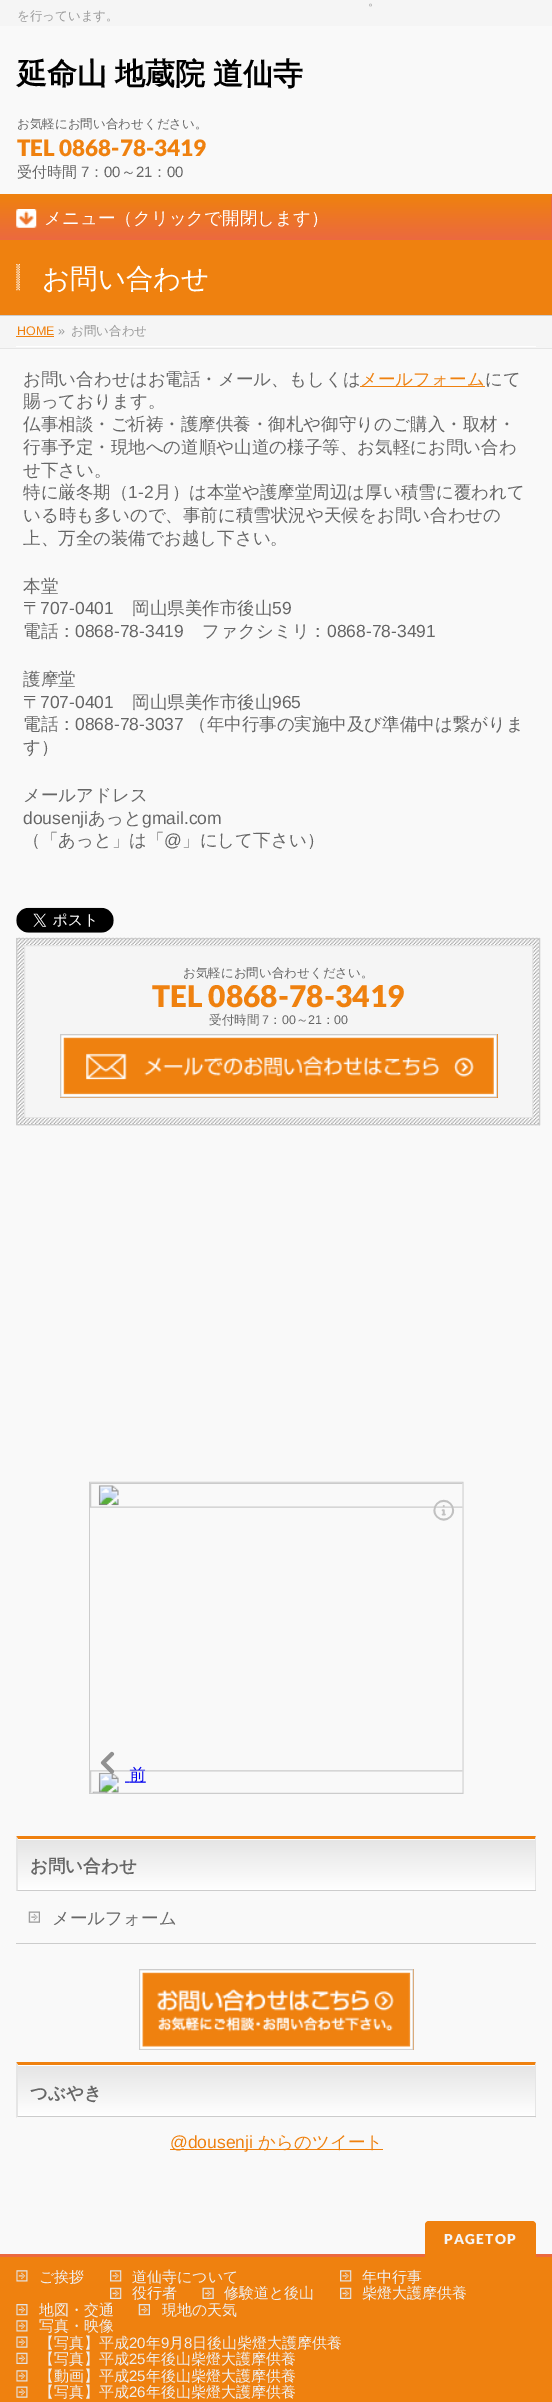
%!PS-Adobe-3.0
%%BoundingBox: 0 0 552 2402
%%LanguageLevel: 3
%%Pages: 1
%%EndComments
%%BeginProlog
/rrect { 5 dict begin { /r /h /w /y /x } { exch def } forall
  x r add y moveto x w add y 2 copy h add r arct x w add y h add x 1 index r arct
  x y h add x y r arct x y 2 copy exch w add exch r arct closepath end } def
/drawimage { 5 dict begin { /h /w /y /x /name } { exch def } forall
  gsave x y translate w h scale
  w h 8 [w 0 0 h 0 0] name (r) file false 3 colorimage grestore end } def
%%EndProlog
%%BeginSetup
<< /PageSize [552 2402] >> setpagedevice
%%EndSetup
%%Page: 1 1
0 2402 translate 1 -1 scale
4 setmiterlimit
0.976 setgray
0 0 552 2402 rectfill
0.961 setgray
0 0 552 26 rectfill
0.937 0.506 0.059 setrgbcolor
0 194 552 2 rectfill
gsave newpath 0 196 moveto 551 196 lineto 551 240 lineto 0 240 lineto closepath clip newpath
<< /ShadingType 2 /ColorSpace /DeviceRGB /Coords [276 196 276 240] /Extend [true true] /Function << /FunctionType 2 /Domain [0 1] /C0 [0.937 0.506 0.059] /C1 [0.922 0.412 0.251] /N 1 >> >> shfill grestore
0.922 0.412 0.251 setrgbcolor
551 196 1 44 rectfill
(images/1.raw) 16 209 21 19 drawimage
0.937 0.506 0.059 setrgbcolor
0 240 552 75 rectfill
0.8 setgray
0 315 552 1 rectfill
(images/2.raw) 16 264 4 27 drawimage
0.961 setgray
0 316 552 32 rectfill
0.898 setgray
0 348 552 1 rectfill
1 setgray
16 346 520 1 rectfill
0.937 0.506 0.059 setrgbcolor
16 336 38 1 rectfill
360 386 125 1 rectfill
(images/3.raw) 16 907 98 26 drawimage
(images/4.raw) 16 937 524 189 drawimage
0.8 setgray
16.5 938.5 523 186 rectstroke
0.961 setgray
newpath 24.5 945.5 moveto 532.5 945.5 lineto 532.5 1117.5 lineto 24.5 1117.5 lineto closepath gsave fill grestore
0.898 setgray
stroke
0.937 0.506 0.059 setrgbcolor
60 1034 438 64 rectfill
(images/5.raw) 60 1034 438 64 drawimage
(images/6.raw) 89 1481 375 313 drawimage
gsave newpath 18 1840 moveto 535 1840 lineto 535 1890 lineto 18 1890 lineto closepath clip newpath
<< /ShadingType 2 /ColorSpace /DeviceRGB /Coords [18 1839 18 1890] /Extend [true true] /Function << /FunctionType 2 /Domain [0 1] /C0 [0.898 0.898 0.898] /C1 [1 1 1] /N 1 >> >> shfill grestore
1 setgray
18 1839 517 1 rectfill
0.937 0.506 0.059 setrgbcolor
newpath 16 1836 moveto 536 1836 lineto 535 1839 lineto 18 1839 lineto closepath fill
0.898 setgray
newpath 536 1836 moveto 536 1891 lineto 535 1890 lineto 535 1839 lineto closepath fill
0.8 setgray
16 1890 520 1 rectfill
0.898 setgray
newpath 16 1891 moveto 16 1836 lineto 18 1839 lineto 18 1890 lineto closepath fill
0.8 setgray
16 1943 520 1 rectfill
(images/7.raw) 28 1911 12 12 drawimage
0.937 0.506 0.059 setrgbcolor
142 1969 272 81 rectfill
(images/8.raw) 139 1969 275 81 drawimage
gsave newpath 18 2066 moveto 535 2066 lineto 535 2116 lineto 18 2116 lineto closepath clip newpath
<< /ShadingType 2 /ColorSpace /DeviceRGB /Coords [18 2065 18 2116] /Extend [true true] /Function << /FunctionType 2 /Domain [0 1] /C0 [0.898 0.898 0.898] /C1 [1 1 1] /N 1 >> >> shfill grestore
1 setgray
18 2065 517 1 rectfill
0.937 0.506 0.059 setrgbcolor
newpath 16 2062 moveto 536 2062 lineto 535 2065 lineto 18 2065 lineto closepath fill
0.898 setgray
newpath 536 2062 moveto 536 2118 lineto 535 2116 lineto 535 2065 lineto closepath fill
0.8 setgray
16 2116 520 1 rectfill
0.898 setgray
newpath 16 2118 moveto 16 2062 lineto 18 2065 lineto 18 2116 lineto closepath fill
0.937 0.506 0.059 setrgbcolor
170 2149 213 1 rectfill
0 2257 552 145 rectfill
0.922 0.412 0.251 setrgbcolor
0 2254 552 3 rectfill
0.937 0.506 0.059 setrgbcolor
425 2221 111 45 4 rrect fill
(images/9.raw) 16 2270 12 12 drawimage
(images/10.raw) 110 2270 12 12 drawimage
(images/11.raw) 110 2287 12 12 drawimage
(images/12.raw) 202 2287 12 12 drawimage
(images/10.raw) 340 2270 12 12 drawimage
(images/11.raw) 340 2287 12 12 drawimage
(images/13.raw) 16 2304 12 12 drawimage
(images/14.raw) 138 2304 12 12 drawimage
(images/9.raw) 16 2320 12 12 drawimage
(images/15.raw) 16 2336 12 12 drawimage
(images/16.raw) 16 2352 12 12 drawimage
(images/9.raw) 16 2370 12 12 drawimage
(images/15.raw) 16 2386 12 12 drawimage
/WenQuanYiZenHei-Medium [12.5 0 0 -12.5 0 0] selectfont
0.6 setgray
368 5 moveto (。) show
17 20 moveto (を行っています。) show
/WenQuanYiZenHei-Bold [30 0 0 -30 0 0] selectfont
0 setgray
17 84 moveto -1 0 32 (延命山 地蔵院 道仙寺) widthshow
/WenQuanYiZenHei-Medium [12.5 0 0 -12.5 0 0] selectfont
0.4 setgray
17 128 moveto (お気軽にお問い合わせください。) show
/Lato-Black [22.5 0 0 -22.5 0 0] selectfont
0.937 0.506 0.059 setrgbcolor
17 156 moveto (TEL 0868-78-3419) show
/WenQuanYiZenHei-Medium [15 0 0 -15 0 0] selectfont
0.4 setgray
17 177 moveto (受付時間) show
/LiberationSans-Regular [15 0 0 -15 0 0] selectfont
81 177 moveto (7) show
/WenQuanYiZenHei-Medium [15 0 0 -15 0 0] selectfont
89 177 moveto (：) show
/LiberationSans-Regular [15 0 0 -15 0 0] selectfont
104 177 moveto (00) show
/WenQuanYiZenHei-Medium [15 0 0 -15 0 0] selectfont
121 177 moveto (～) show
/LiberationSans-Regular [15 0 0 -15 0 0] selectfont
136 177 moveto (21) show
/WenQuanYiZenHei-Medium [15 0 0 -15 0 0] selectfont
152 177 moveto (：) show
/LiberationSans-Regular [15 0 0 -15 0 0] selectfont
167 177 moveto (00) show
/WenQuanYiZenHei-Medium [17.5 0 0 -17.5 0 0] selectfont
1 setgray
44 224 moveto (メニュー（クリックで開閉します）) show
/WenQuanYiZenHei-Medium [27.5 0 0 -27.5 0 0] selectfont
42 288 moveto (お問い合わせ) show
/LiberationSans-Regular [12.5 0 0 -12.5 0 0] selectfont
0.937 0.506 0.059 setrgbcolor
17 335 moveto (HOME) show
0.6 setgray
58 335 moveto (») show
/WenQuanYiZenHei-Medium [12.5 0 0 -12.5 0 0] selectfont
71 335 moveto (お問い合わせ) show
/WenQuanYiZenHei-Medium [17.5 0 0 -17.5 0 0] selectfont
0.4 setgray
23 385 moveto (お問い合わせはお電話・メール、もしくは) show
0.937 0.506 0.059 setrgbcolor
360 385 moveto (メールフォーム) show
0.4 setgray
485 385 moveto (にて) show
23 407 moveto (賜っております。) show
23 430 moveto (仏事相談・ご祈祷・護摩供養・御札や御守りのご購入・取材・) show
23 453 moveto (行事予定・現地への道順や山道の様子等、お気軽にお問い合わ) show
23 476 moveto (せ下さい。) show
23 498 moveto (特に厳冬期（) show
/LiberationSans-Regular [17.5 0 0 -17.5 0 0] selectfont
128 498 moveto (1-2) show
/WenQuanYiZenHei-Medium [17.5 0 0 -17.5 0 0] selectfont
154 498 moveto (月）は本堂や護摩堂周辺は厚い積雪に覆われて) show
23 521 moveto (いる時も多いので、事前に積雪状況や天候をお問い合わせの) show
23 544 moveto (上、万全の装備でお越し下さい。) show
23 592 moveto (本堂) show
23 614 moveto (〒) show
/LiberationSans-Regular [17.5 0 0 -17.5 0 0] selectfont
40 614 moveto (707-0401) show
/WenQuanYiZenHei-Medium [17.5 0 0 -17.5 0 0] selectfont
132 614 moveto (岡山県美作市後山) show
/LiberationSans-Regular [17.5 0 0 -17.5 0 0] selectfont
272 614 moveto (59) show
/WenQuanYiZenHei-Medium [17.5 0 0 -17.5 0 0] selectfont
23 637 moveto (電話：) show
/LiberationSans-Regular [17.5 0 0 -17.5 0 0] selectfont
75 637 moveto (0868-78-3419) show
/WenQuanYiZenHei-Medium [17.5 0 0 -17.5 0 0] selectfont
202 637 moveto (ファクシミリ：) show
/LiberationSans-Regular [17.5 0 0 -17.5 0 0] selectfont
327 637 moveto (0868-78-3491) show
/WenQuanYiZenHei-Medium [17.5 0 0 -17.5 0 0] selectfont
23 685 moveto (護摩堂) show
23 708 moveto (〒) show
/LiberationSans-Regular [17.5 0 0 -17.5 0 0] selectfont
40 708 moveto (707-0401) show
/WenQuanYiZenHei-Medium [17.5 0 0 -17.5 0 0] selectfont
132 708 moveto (岡山県美作市後山) show
/LiberationSans-Regular [17.5 0 0 -17.5 0 0] selectfont
272 708 moveto (965) show
/WenQuanYiZenHei-Medium [17.5 0 0 -17.5 0 0] selectfont
23 730 moveto (電話：) show
/LiberationSans-Regular [17.5 0 0 -17.5 0 0] selectfont
75 730 moveto (0868-78-3037) show
/WenQuanYiZenHei-Medium [17.5 0 0 -17.5 0 0] selectfont
189 730 moveto (（年中行事の実施中及び準備中は繋がりま) show
23 753 moveto (す）) show
23 801 moveto (メールアドレス) show
/LiberationSans-Regular [17.5 0 0 -17.5 0 0] selectfont
23 824 moveto (dousenji) show
/WenQuanYiZenHei-Medium [17.5 0 0 -17.5 0 0] selectfont
88 824 moveto (あっと) show
/LiberationSans-Regular [17.5 0 0 -17.5 0 0] selectfont
142 824 moveto (gmail.com) show
/WenQuanYiZenHei-Medium [17.5 0 0 -17.5 0 0] selectfont
23 846 moveto (（「あっと」は「) show
/LiberationSans-Regular [17.5 0 0 -17.5 0 0] selectfont
164 846 moveto (@) show
/WenQuanYiZenHei-Medium [17.5 0 0 -17.5 0 0] selectfont
182 846 moveto (」にして下さい）) show
/WenQuanYiZenHei-Medium [12.5 0 0 -12.5 0 0] selectfont
183 977 moveto (お気軽にお問い合わせください。) show
/Lato-Black [30 0 0 -30 0 0] selectfont
0.937 0.506 0.059 setrgbcolor
152 1007 moveto (TEL 0868-78-3419) show
/WenQuanYiZenHei-Medium [12.5 0 0 -12.5 0 0] selectfont
0.4 setgray
209 1024 moveto (受付時間) show
/LiberationSans-Regular [12.5 0 0 -12.5 0 0] selectfont
262 1024 moveto (7) show
/WenQuanYiZenHei-Medium [12.5 0 0 -12.5 0 0] selectfont
269 1024 moveto (：) show
/LiberationSans-Regular [12.5 0 0 -12.5 0 0] selectfont
282 1024 moveto (00) show
/WenQuanYiZenHei-Medium [12.5 0 0 -12.5 0 0] selectfont
296 1024 moveto (～) show
/LiberationSans-Regular [12.5 0 0 -12.5 0 0] selectfont
308 1024 moveto (21) show
/WenQuanYiZenHei-Medium [12.5 0 0 -12.5 0 0] selectfont
322 1024 moveto (：) show
/LiberationSans-Regular [12.5 0 0 -12.5 0 0] selectfont
334 1024 moveto (00) show
/WenQuanYiZenHei-Bold [17.5 0 0 -17.5 0 0] selectfont
30 1872 moveto (お問い合わせ) show
/WenQuanYiZenHei-Medium [17.5 0 0 -17.5 0 0] selectfont
52 1924 moveto (メールフォーム) show
/WenQuanYiZenHei-Bold [17.5 0 0 -17.5 0 0] selectfont
30 2099 moveto (つぶやき) show
/LiberationSans-Regular [17.5 0 0 -17.5 0 0] selectfont
0.937 0.506 0.059 setrgbcolor
170 2148 moveto (@dousenji) show
/WenQuanYiZenHei-Medium [17.5 0 0 -17.5 0 0] selectfont
258 2148 moveto (からのツイート) show
/Lato-Black [13.75 0 0 -13.75 0 0] selectfont
0.961 setgray
444 2244 moveto 1.25 0 (PAGETOP) ashow
/WenQuanYiZenHei-Medium [15 0 0 -15 0 0] selectfont
0.937 setgray
39 2282 moveto (ご挨拶) show
132 2282 moveto (道仙寺について) show
132 2298 moveto (役行者) show
224 2298 moveto (修験道と後山) show
362 2282 moveto (年中行事) show
362 2298 moveto (柴燈大護摩供養) show
39 2315 moveto (地図・交通) show
162 2315 moveto (現地の天気) show
39 2331 moveto (写真・映像) show
39 2348 moveto (【写真】平成) show
/LiberationSans-Regular [15 0 0 -15 0 0] selectfont
129 2348 moveto (20) show
/WenQuanYiZenHei-Medium [15 0 0 -15 0 0] selectfont
146 2348 moveto (年) show
/LiberationSans-Regular [15 0 0 -15 0 0] selectfont
161 2348 moveto (9) show
/WenQuanYiZenHei-Medium [15 0 0 -15 0 0] selectfont
169 2348 moveto (月) show
/LiberationSans-Regular [15 0 0 -15 0 0] selectfont
184 2348 moveto (8) show
/WenQuanYiZenHei-Medium [15 0 0 -15 0 0] selectfont
192 2348 moveto (日後山柴燈大護摩供養) show
39 2364 moveto (【写真】平成) show
/LiberationSans-Regular [15 0 0 -15 0 0] selectfont
129 2364 moveto (25) show
/WenQuanYiZenHei-Medium [15 0 0 -15 0 0] selectfont
146 2364 moveto (年後山柴燈大護摩供養) show
39 2381 moveto (【動画】平成) show
/LiberationSans-Regular [15 0 0 -15 0 0] selectfont
129 2381 moveto (25) show
/WenQuanYiZenHei-Medium [15 0 0 -15 0 0] selectfont
146 2381 moveto (年後山柴燈大護摩供養) show
39 2397 moveto (【写真】平成) show
/LiberationSans-Regular [15 0 0 -15 0 0] selectfont
129 2397 moveto (26) show
/WenQuanYiZenHei-Medium [15 0 0 -15 0 0] selectfont
146 2397 moveto (年後山柴燈大護摩供養) show
showpage
%%EOF
